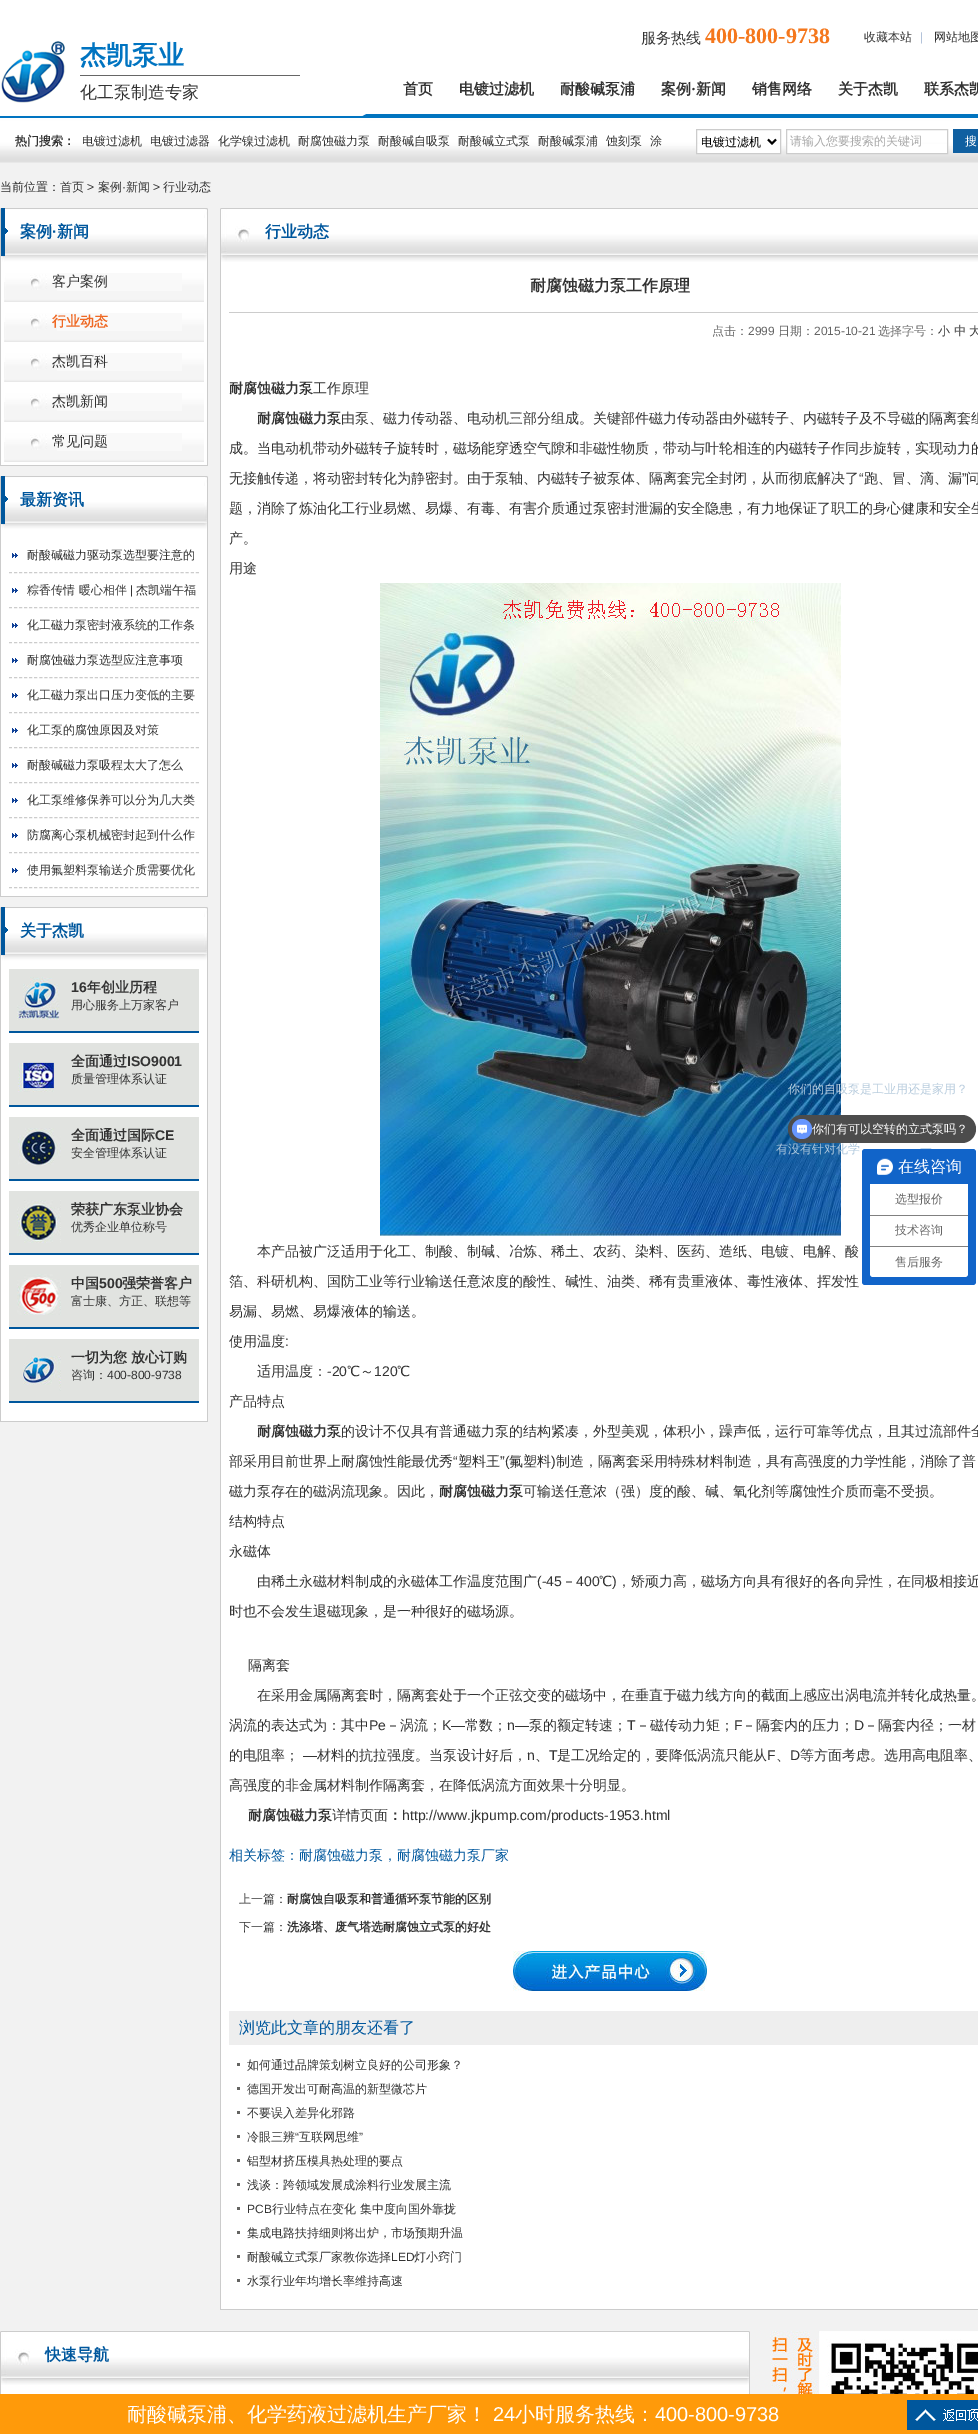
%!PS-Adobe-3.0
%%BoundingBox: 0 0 978 2434
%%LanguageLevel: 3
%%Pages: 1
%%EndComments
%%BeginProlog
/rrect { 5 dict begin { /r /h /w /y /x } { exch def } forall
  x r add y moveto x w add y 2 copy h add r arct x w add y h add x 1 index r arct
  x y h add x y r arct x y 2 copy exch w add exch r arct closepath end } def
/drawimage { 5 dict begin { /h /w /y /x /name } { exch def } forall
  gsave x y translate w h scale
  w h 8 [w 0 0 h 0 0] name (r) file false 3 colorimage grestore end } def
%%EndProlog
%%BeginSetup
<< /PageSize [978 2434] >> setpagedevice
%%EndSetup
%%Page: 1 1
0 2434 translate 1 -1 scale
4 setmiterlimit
0.949 setgray
0 0 978 2434 rectfill
1 setgray
0 0 978 114 rectfill
(images/1.raw) 0 114 978 4 drawimage
(images/2.raw) 1 41 65 62 drawimage
0.4 setgray
80 75 220 1 rectfill
(images/3.raw) 0 118 978 45 drawimage
1 setgray
697 144 83 9 rectfill
0.8 setgray
696.5 129.5 84 24 rectstroke
0 setgray
2 setlinewidth
newpath 768 139.5 moveto 772 143.5 lineto 776 139.5 lineto stroke
1 setgray
787 144 160 9 rectfill
0.8 setgray
1 setlinewidth
786.5 129.5 161 24 rectstroke
0.063 0.376 0.631 setrgbcolor
953 129 25 24 rectfill
(images/4.raw) 8 208 196 54 drawimage
(images/5.raw) 0 208 8 54 drawimage
(images/6.raw) 204 208 4 54 drawimage
1 setgray
1 262 206 203 rectfill
0.8 setgray
207 262 1 204 rectfill
0 465 208 1 rectfill
0 262 1 204 rectfill
(images/7.raw) 4 273 200 29 drawimage
(images/7.raw) 4 313 200 29 drawimage
(images/7.raw) 4 353 200 29 drawimage
(images/7.raw) 4 393 200 29 drawimage
(images/7.raw) 4 433 200 29 drawimage
(images/4.raw) 8 476 196 54 drawimage
(images/5.raw) 0 476 8 54 drawimage
(images/6.raw) 204 476 4 54 drawimage
1 setgray
1 530 206 366 rectfill
0.8 setgray
207 530 1 367 rectfill
0 896 208 1 rectfill
0 530 1 367 rectfill
(images/8.raw) 12 553 6 5 drawimage
[3 2.05] 0 setdash
newpath 9 572.5 moveto 199 572.5 lineto stroke
(images/8.raw) 12 588 6 5 drawimage
newpath 9 607.5 moveto 199 607.5 lineto stroke
(images/8.raw) 12 623 6 5 drawimage
newpath 9 642.5 moveto 199 642.5 lineto stroke
(images/8.raw) 12 658 6 5 drawimage
newpath 9 677.5 moveto 199 677.5 lineto stroke
(images/8.raw) 12 693 6 5 drawimage
newpath 9 712.5 moveto 199 712.5 lineto stroke
(images/8.raw) 12 728 6 5 drawimage
newpath 9 747.5 moveto 199 747.5 lineto stroke
(images/8.raw) 12 763 6 5 drawimage
newpath 9 782.5 moveto 199 782.5 lineto stroke
(images/8.raw) 12 798 6 5 drawimage
newpath 9 817.5 moveto 199 817.5 lineto stroke
(images/8.raw) 12 833 6 5 drawimage
newpath 9 852.5 moveto 199 852.5 lineto stroke
(images/8.raw) 12 868 6 5 drawimage
newpath 9 887.5 moveto 199 887.5 lineto stroke
(images/4.raw) 8 907 196 54 drawimage
(images/5.raw) 0 907 8 54 drawimage
(images/6.raw) 204 907 4 54 drawimage
1 setgray
1 961 206 460 rectfill
0.8 setgray
207 961 1 461 rectfill
0 1421 208 1 rectfill
0 961 1 461 rectfill
0.882 0.89 0.878 setrgbcolor
9 969 190 62 rectfill
0 0.341 0.616 setrgbcolor
9 1031 190 2 rectfill
(images/9.raw) 17 977 43 43 drawimage
0.882 0.89 0.878 setrgbcolor
9 1043 190 62 rectfill
0 0.341 0.616 setrgbcolor
9 1105 190 2 rectfill
(images/10.raw) 18 1062 36 30 drawimage
0.882 0.89 0.878 setrgbcolor
9 1117 190 62 rectfill
0 0.341 0.616 setrgbcolor
9 1179 190 2 rectfill
(images/11.raw) 18 1128 43 38 drawimage
0.882 0.89 0.878 setrgbcolor
9 1191 190 62 rectfill
0 0.341 0.616 setrgbcolor
9 1253 190 2 rectfill
(images/12.raw) 17 1200 44 43 drawimage
0.882 0.89 0.878 setrgbcolor
9 1265 190 62 rectfill
0 0.341 0.616 setrgbcolor
9 1327 190 2 rectfill
(images/13.raw) 17 1274 44 41 drawimage
0.882 0.89 0.878 setrgbcolor
9 1339 190 62 rectfill
0 0.341 0.616 setrgbcolor
9 1401 190 2 rectfill
(images/14.raw) 22 1356 39 35 drawimage
(images/15.raw) 250 208 728 54 drawimage
(images/16.raw) 220 208 30 54 drawimage
1 setgray
221 262 757 2047 rectfill
0.8 setgray
220 2309 758 1 rectfill
220 262 1 2048 rectfill
229 312 749 1 rectfill
(images/17.raw) 380 583 461 653 drawimage
(images/18.raw) 513 1951 194 40 drawimage
0.933 setgray
229 2011 749 34 rectfill
0.392 0.392 0.384 setrgbcolor
237 2063 3 3 rectfill
237 2087 3 3 rectfill
237 2111 3 3 rectfill
237 2135 3 3 rectfill
237 2159 3 3 rectfill
237 2183 3 3 rectfill
237 2207 3 3 rectfill
237 2231 3 3 rectfill
237 2255 3 3 rectfill
237 2279 3 3 rectfill
(images/19.raw) 30 2331 717 54 drawimage
(images/16.raw) 0 2331 30 54 drawimage
(images/20.raw) 747 2331 3 54 drawimage
1 setgray
1 2385 748 9 rectfill
0.8 setgray
749 2385 1 9 rectfill
0 2385 1 9 rectfill
(images/21.raw) 770 2331 208 63 drawimage
1 0.604 0.039 setrgbcolor
0 2394 978 40 rectfill
(images/22.raw) 907 2400 71 30 drawimage
0.298 setgray
788 1115 188 28 14 rrect fill
0.4 0.588 1 setrgbcolor
newpath 802 1129 10 0 360 arc closepath fill
(images/23.raw) 797 1124 10 10 drawimage
0.067 0.392 0.788 setrgbcolor
862 1149 114 136 3 rrect fill
(images/24.raw) 877 1158 16 17 drawimage
1 setgray
870 1184 98 31 rectfill
0.502 setgray
870 1215 98 1 rectfill
1 setgray
870 1216 98 30 rectfill
0.502 setgray
870 1246 98 1 rectfill
1 setgray
newpath 870 1247 moveto 968 1247 lineto 968 1274 lineto 968 1275.5 966.5 1277 965 1277 curveto 873 1277 lineto 871.5 1277 870 1275.5 870 1274 curveto closepath fill
/WenQuanYiZenHei-Medium [15 0 0 -15 0 0] selectfont
0.2 setgray
641 43 moveto (服务热线) show
/LiberationSerif-Bold [22 0 0 -22 0 0] selectfont
0.961 0.467 0.11 setrgbcolor
705 43 moveto (400-800-9738) show
/WenQuanYiZenHei-Medium [12 0 0 -12 0 0] selectfont
0.2 setgray
864 41 moveto (收藏本站) show
/LiberationSans-Regular [12 0 0 -12 0 0] selectfont
0.702 0.765 0.855 setrgbcolor
920 41 moveto (|) show
/WenQuanYiZenHei-Medium [12 0 0 -12 0 0] selectfont
0.2 setgray
934 41 moveto (网站地图) show
/WenQuanYiZenHei-Bold [26 0 0 -26 0 0] selectfont
0 0.455 0.757 setrgbcolor
80 64 moveto (杰凯泵业) show
/WenQuanYiZenHei-Medium [17 0 0 -17 0 0] selectfont
0.2 setgray
80 98 moveto (化工泵制造专家) show
/WenQuanYiZenHei-Bold [15 0 0 -15 0 0] selectfont
403 94 moveto (首页) show
459 94 moveto (电镀过滤机) show
560 94 moveto (耐酸碱泵浦) show
661 94 moveto (案例) show
/LiberationSerif-Bold [15 0 0 -15 0 0] selectfont
691 94 moveto (·) show
/WenQuanYiZenHei-Bold [15 0 0 -15 0 0] selectfont
696 94 moveto (新闻) show
752 94 moveto (销售网络) show
838 94 moveto (关于杰凯) show
924 94 moveto (联系杰凯) show
/WenQuanYiZenHei-Bold [12 0 0 -12 0 0] selectfont
15 145 moveto (热门搜索：) show
/WenQuanYiZenHei-Medium [12 0 0 -12 0 0] selectfont
82 145 moveto (电镀过滤机) show
150 145 moveto (电镀过滤器) show
218 145 moveto (化学镍过滤机) show
298 145 moveto (耐腐蚀磁力泵) show
378 145 moveto (耐酸碱自吸泵) show
458 145 moveto (耐酸碱立式泵) show
538 145 moveto (耐酸碱泵浦) show
606 145 moveto (蚀刻泵) show
650 145 moveto (涂) show
0 setgray
701 146 moveto (电镀过滤机) show
0.663 setgray
790 145 moveto (请输入您要搜索的关键词) show
1 setgray
965 145 moveto (搜) show
0.2 setgray
0 191 moveto (当前位置：首页) show
/LiberationSans-Regular [12 0 0 -12 0 0] selectfont
87 191 moveto (>) show
/WenQuanYiZenHei-Medium [12 0 0 -12 0 0] selectfont
98 191 moveto (案例) show
/LiberationSans-Regular [12 0 0 -12 0 0] selectfont
122 191 moveto (·) show
/WenQuanYiZenHei-Medium [12 0 0 -12 0 0] selectfont
126 191 moveto (新闻) show
/LiberationSans-Regular [12 0 0 -12 0 0] selectfont
153 191 moveto (>) show
/WenQuanYiZenHei-Medium [12 0 0 -12 0 0] selectfont
163 191 moveto (行业动态) show
/WenQuanYiZenHei-Bold [16 0 0 -16 0 0] selectfont
0 0.341 0.616 setrgbcolor
20 237 moveto (案例) show
/LiberationSans-Bold [16 0 0 -16 0 0] selectfont
52 237 moveto (·) show
/WenQuanYiZenHei-Bold [16 0 0 -16 0 0] selectfont
57 237 moveto (新闻) show
/WenQuanYiZenHei-Medium [14 0 0 -14 0 0] selectfont
0.2 setgray
52 286 moveto (客户案例) show
/WenQuanYiZenHei-Bold [14 0 0 -14 0 0] selectfont
0.937 0.412 0.141 setrgbcolor
52 326 moveto (行业动态) show
/WenQuanYiZenHei-Medium [14 0 0 -14 0 0] selectfont
0.2 setgray
52 366 moveto (杰凯百科) show
52 406 moveto (杰凯新闻) show
52 446 moveto (常见问题) show
/WenQuanYiZenHei-Bold [16 0 0 -16 0 0] selectfont
0 0.341 0.616 setrgbcolor
20 505 moveto (最新资讯) show
/WenQuanYiZenHei-Medium [12 0 0 -12 0 0] selectfont
0.2 setgray
27 559 moveto (耐酸碱磁力驱动泵选型要注意的) show
27 594 moveto (粽香传情 暖心相伴) show
/LiberationSans-Regular [12 0 0 -12 0 0] selectfont
130 594 moveto (|) show
/WenQuanYiZenHei-Medium [12 0 0 -12 0 0] selectfont
136 594 moveto (杰凯端午福) show
27 629 moveto (化工磁力泵密封液系统的工作条) show
27 664 moveto (耐腐蚀磁力泵选型应注意事项) show
27 699 moveto (化工磁力泵出口压力变低的主要) show
27 734 moveto (化工泵的腐蚀原因及对策) show
27 769 moveto (耐酸碱磁力泵吸程太大了怎么) show
27 804 moveto (化工泵维修保养可以分为几大类) show
27 839 moveto (防腐离心泵机械密封起到什么作) show
27 874 moveto (使用氟塑料泵输送介质需要优化) show
/WenQuanYiZenHei-Bold [16 0 0 -16 0 0] selectfont
0 0.341 0.616 setrgbcolor
20 936 moveto (关于杰凯) show
/LiberationSans-Bold [14 0 0 -14 0 0] selectfont
0.2 setgray
71 992 moveto (16) show
/WenQuanYiZenHei-Bold [14 0 0 -14 0 0] selectfont
87 992 moveto (年创业历程) show
/WenQuanYiZenHei-Medium [12 0 0 -12 0 0] selectfont
71 1009 moveto (用心服务上万家客户) show
/WenQuanYiZenHei-Bold [14 0 0 -14 0 0] selectfont
71 1066 moveto (全面通过) show
/LiberationSans-Bold [14 0 0 -14 0 0] selectfont
127 1066 moveto (ISO9001) show
/WenQuanYiZenHei-Medium [12 0 0 -12 0 0] selectfont
71 1083 moveto (质量管理体系认证) show
/WenQuanYiZenHei-Bold [14 0 0 -14 0 0] selectfont
71 1140 moveto (全面通过国际) show
/LiberationSans-Bold [14 0 0 -14 0 0] selectfont
155 1140 moveto (CE) show
/WenQuanYiZenHei-Medium [12 0 0 -12 0 0] selectfont
71 1157 moveto (安全管理体系认证) show
/WenQuanYiZenHei-Bold [14 0 0 -14 0 0] selectfont
71 1214 moveto (荣获广东泵业协会) show
/WenQuanYiZenHei-Medium [12 0 0 -12 0 0] selectfont
71 1231 moveto (优秀企业单位称号) show
/WenQuanYiZenHei-Bold [14 0 0 -14 0 0] selectfont
71 1288 moveto (中国) show
/LiberationSans-Bold [14 0 0 -14 0 0] selectfont
99 1288 moveto (500) show
/WenQuanYiZenHei-Bold [14 0 0 -14 0 0] selectfont
122 1288 moveto (强荣誉客户) show
/WenQuanYiZenHei-Medium [12 0 0 -12 0 0] selectfont
71 1305 moveto (富士康、方正、联想等) show
/WenQuanYiZenHei-Bold [14 0 0 -14 0 0] selectfont
71 1362 moveto (一切为您 放心订购) show
/WenQuanYiZenHei-Medium [12 0 0 -12 0 0] selectfont
71 1379 moveto (咨询：) show
/LiberationSans-Regular [12 0 0 -12 0 0] selectfont
107 1379 moveto (400-800-9738) show
/WenQuanYiZenHei-Bold [16 0 0 -16 0 0] selectfont
0 0.341 0.616 setrgbcolor
265 237 moveto (行业动态) show
0.2 setgray
530 291 moveto (耐腐蚀磁力泵工作原理) show
/WenQuanYiZenHei-Medium [12 0 0 -12 0 0] selectfont
0.4 setgray
712 335 moveto (点击：) show
/LiberationSans-Regular [12 0 0 -12 0 0] selectfont
748 335 moveto (2999) show
/WenQuanYiZenHei-Medium [12 0 0 -12 0 0] selectfont
778 335 moveto (日期：) show
/LiberationSans-Regular [12 0 0 -12 0 0] selectfont
814 335 moveto (2015-10-21) show
/WenQuanYiZenHei-Medium [12 0 0 -12 0 0] selectfont
878 335 moveto (选择字号：) show
0.2 setgray
938 335 moveto (小) show
/WenQuanYiZenHei-Bold [12 0 0 -12 0 0] selectfont
0.4 setgray
954 335 moveto (中) show
/WenQuanYiZenHei-Medium [12 0 0 -12 0 0] selectfont
0.2 setgray
969 335 moveto (大) show
/WenQuanYiZenHei-Bold [14 0 0 -14 0 0] selectfont
229 393 moveto (耐腐蚀磁力泵) show
/WenQuanYiZenHei-Medium [14 0 0 -14 0 0] selectfont
313 393 moveto (工作原理) show
/WenQuanYiZenHei-Bold [14 0 0 -14 0 0] selectfont
257 423 moveto (耐腐蚀磁力泵) show
/WenQuanYiZenHei-Medium [14 0 0 -14 0 0] selectfont
341 423 moveto (由泵、磁力传动器、电动机三部分组成。关键部件磁力传动器由外磁转子、内磁转子及不导磁的隔离套组) show
229 453 moveto (成。当电动机带动外磁转子旋转时，磁场能穿透空气隙和非磁性物质，带动与叶轮相连的内磁转子作同步旋转，实现动力的) show
229 483 moveto (无接触传递，将动密封转化为静密封。由于泵轴、内磁转子被泵体、隔离套完全封闭，从而彻底解决了) show
/LiberationSans-Regular [14 0 0 -14 0 0] selectfont
859 483 moveto (“) show
/WenQuanYiZenHei-Medium [14 0 0 -14 0 0] selectfont
864 483 moveto (跑、冒、滴、漏) show
/LiberationSans-Regular [14 0 0 -14 0 0] selectfont
962 483 moveto (”) show
/WenQuanYiZenHei-Medium [14 0 0 -14 0 0] selectfont
966 483 moveto (问) show
229 513 moveto (题，消除了炼油化工行业易燃、易爆、有毒、有害介质通过泵密封泄漏的安全隐患，有力地保证了职工的身心健康和安全生) show
229 543 moveto (产。) show
229 573 moveto (用途) show
257 1256 moveto (本产品被广泛适用于化工、制酸、制碱、冶炼、稀土、农药、染料、医药、造纸、电镀、电解、酸) show
229 1286 moveto (箔、科研机构、国防工业等行业输送任意浓度的酸性、碱性、油类、稀有贵重液体、毒性液体、挥发性) show
229 1316 moveto (易漏、易燃、易爆液体的输送。) show
229 1346 moveto (使用温度) show
/LiberationSans-Regular [14 0 0 -14 0 0] selectfont
285 1346 moveto (:) show
/WenQuanYiZenHei-Medium [14 0 0 -14 0 0] selectfont
257 1376 moveto (适用温度：) show
/LiberationSans-Regular [14 0 0 -14 0 0] selectfont
327 1376 moveto (-20) show
/WenQuanYiZenHei-Medium [14 0 0 -14 0 0] selectfont
347 1376 moveto (℃～) show
/LiberationSans-Regular [14 0 0 -14 0 0] selectfont
374 1376 moveto (120) show
/WenQuanYiZenHei-Medium [14 0 0 -14 0 0] selectfont
397 1376 moveto (℃) show
229 1406 moveto (产品特点) show
/WenQuanYiZenHei-Bold [14 0 0 -14 0 0] selectfont
257 1436 moveto (耐腐蚀磁力泵) show
/WenQuanYiZenHei-Medium [14 0 0 -14 0 0] selectfont
341 1436 moveto (的设计不仅具有普通磁力泵的结构紧凑，外型美观，体积小，躁声低，运行可靠等优点，且其过流部件全) show
229 1466 moveto (部采用目前世界上耐腐蚀性能最优秀) show
/LiberationSans-Regular [14 0 0 -14 0 0] selectfont
453 1466 moveto (“) show
/WenQuanYiZenHei-Medium [14 0 0 -14 0 0] selectfont
458 1466 moveto (塑料王) show
/LiberationSans-Regular [14 0 0 -14 0 0] selectfont
500 1466 moveto (”\() show
/WenQuanYiZenHei-Medium [14 0 0 -14 0 0] selectfont
509 1466 moveto (氟塑料) show
/LiberationSans-Regular [14 0 0 -14 0 0] selectfont
551 1466 moveto (\)) show
/WenQuanYiZenHei-Medium [14 0 0 -14 0 0] selectfont
556 1466 moveto (制造，隔离套采用特殊材料制造，具有高强度的力学性能，消除了普) show
229 1496 moveto (磁力泵存在的磁涡流现象。因此，) show
/WenQuanYiZenHei-Bold [14 0 0 -14 0 0] selectfont
439 1496 moveto (耐腐蚀磁力泵) show
/WenQuanYiZenHei-Medium [14 0 0 -14 0 0] selectfont
523 1496 moveto (可输送任意浓（强）度的酸、碱、氧化剂等腐蚀性介质而毫不受损。) show
229 1526 moveto (结构特点) show
229 1556 moveto (永磁体) show
257 1586 moveto (由稀土永磁材料制成的永磁体工作温度范围广) show
/LiberationSans-Regular [14 0 0 -14 0 0] selectfont
537 1586 moveto (\(-45) show
/WenQuanYiZenHei-Medium [14 0 0 -14 0 0] selectfont
562 1586 moveto (－) show
/LiberationSans-Regular [14 0 0 -14 0 0] selectfont
576 1586 moveto (400) show
/WenQuanYiZenHei-Medium [14 0 0 -14 0 0] selectfont
599 1586 moveto (℃) show
/LiberationSans-Regular [14 0 0 -14 0 0] selectfont
612 1586 moveto (\)) show
/WenQuanYiZenHei-Medium [14 0 0 -14 0 0] selectfont
617 1586 moveto (，矫顽力高，磁场方向具有很好的各向异性，在同极相接近) show
229 1616 moveto (时也不会发生退磁现象，是一种很好的磁场源。) show
248 1670 moveto (隔离套) show
257 1700 moveto (在采用金属隔离套时，隔离套处于一个正弦交变的磁场中，在垂直于磁力线方向的截面上感应出涡电流并转化成热量。) show
229 1730 moveto (涡流的表达式为：其中) show
/LiberationSans-Regular [14 0 0 -14 0 0] selectfont
369 1730 moveto (Pe) show
/WenQuanYiZenHei-Medium [14 0 0 -14 0 0] selectfont
386 1730 moveto (－涡流；) show
/LiberationSans-Regular [14 0 0 -14 0 0] selectfont
442 1730 moveto (K—) show
/WenQuanYiZenHei-Medium [14 0 0 -14 0 0] selectfont
465 1730 moveto (常数；) show
/LiberationSans-Regular [14 0 0 -14 0 0] selectfont
507 1730 moveto (n—) show
/WenQuanYiZenHei-Medium [14 0 0 -14 0 0] selectfont
529 1730 moveto (泵的额定转速；) show
/LiberationSans-Regular [14 0 0 -14 0 0] selectfont
627 1730 moveto (T) show
/WenQuanYiZenHei-Medium [14 0 0 -14 0 0] selectfont
636 1730 moveto (－磁传动力矩；) show
/LiberationSans-Regular [14 0 0 -14 0 0] selectfont
734 1730 moveto (F) show
/WenQuanYiZenHei-Medium [14 0 0 -14 0 0] selectfont
742 1730 moveto (－隔套内的压力；) show
/LiberationSans-Regular [14 0 0 -14 0 0] selectfont
854 1730 moveto (D) show
/WenQuanYiZenHei-Medium [14 0 0 -14 0 0] selectfont
864 1730 moveto (－隔套内径；一材) show
229 1760 moveto (的电阻率；) show
/LiberationSans-Regular [14 0 0 -14 0 0] selectfont
303 1760 moveto (—) show
/WenQuanYiZenHei-Medium [14 0 0 -14 0 0] selectfont
317 1760 moveto (材料的抗拉强度。当泵设计好后，) show
/LiberationSans-Regular [14 0 0 -14 0 0] selectfont
527 1760 moveto (n) show
549 1760 moveto (T) show
/WenQuanYiZenHei-Medium [14 0 0 -14 0 0] selectfont
557 1760 moveto (是工况给定的，要降低涡流只能从) show
/LiberationSans-Regular [14 0 0 -14 0 0] selectfont
767 1760 moveto (F) show
790 1760 moveto (D) show
/WenQuanYiZenHei-Medium [14 0 0 -14 0 0] selectfont
800 1760 moveto (等方面考虑。选用高电阻率、) show
535 1760 moveto (、) show
776 1760 moveto (、) show
229 1790 moveto (高强度的非金属材料制作隔离套，在降低涡流方面效果十分明显。) show
/WenQuanYiZenHei-Bold [14 0 0 -14 0 0] selectfont
248 1820 moveto (耐腐蚀磁力泵) show
/WenQuanYiZenHei-Medium [14 0 0 -14 0 0] selectfont
332 1820 moveto (详情页面) show
/WenQuanYiZenHei-Bold [14 0 0 -14 0 0] selectfont
388 1820 moveto (：) show
/LiberationSans-Regular [14 0 0 -14 0 0] selectfont
402 1820 moveto (http://www.jkpump.com/products-1953.html) show
/WenQuanYiZenHei-Medium [14 0 0 -14 0 0] selectfont
0 0.341 0.616 setrgbcolor
229 1860 moveto (相关标签：耐腐蚀磁力泵，耐腐蚀磁力泵厂家) show
/WenQuanYiZenHei-Medium [12 0 0 -12 0 0] selectfont
0.2 setgray
239 1903 moveto (上一篇：) show
/WenQuanYiZenHei-Bold [12 0 0 -12 0 0] selectfont
287 1903 moveto (耐腐蚀自吸泵和普通循环泵节能的区别) show
/WenQuanYiZenHei-Medium [12 0 0 -12 0 0] selectfont
239 1931 moveto (下一篇：) show
/WenQuanYiZenHei-Bold [12 0 0 -12 0 0] selectfont
287 1931 moveto (洗涤塔、废气塔选耐腐蚀立式泵的好处) show
/WenQuanYiZenHei-Medium [16 0 0 -16 0 0] selectfont
0 0.341 0.616 setrgbcolor
239 2033 moveto (浏览此文章的朋友还看了) show
/WenQuanYiZenHei-Medium [12 0 0 -12 0 0] selectfont
0.2 setgray
247 2069 moveto (如何通过品牌策划树立良好的公司形象？) show
247 2093 moveto (德国开发出可耐高温的新型微芯片) show
247 2117 moveto (不要误入差异化邪路) show
247 2141 moveto (冷眼三辨) show
/LiberationSans-Regular [12 0 0 -12 0 0] selectfont
295 2141 moveto (“) show
/WenQuanYiZenHei-Medium [12 0 0 -12 0 0] selectfont
299 2141 moveto (互联网思维) show
/LiberationSans-Regular [12 0 0 -12 0 0] selectfont
359 2141 moveto (”) show
/WenQuanYiZenHei-Medium [12 0 0 -12 0 0] selectfont
247 2165 moveto (铝型材挤压模具热处理的要点) show
247 2189 moveto (浅谈：跨领域发展成涂料行业发展主流) show
/LiberationSans-Regular [12 0 0 -12 0 0] selectfont
247 2213 moveto (PCB) show
/WenQuanYiZenHei-Medium [12 0 0 -12 0 0] selectfont
272 2213 moveto (行业特点在变化 集中度向国外靠拢) show
247 2237 moveto (集成电路扶持细则将出炉，市场预期升温) show
247 2261 moveto (耐酸碱立式泵厂家教你选择) show
/LiberationSans-Regular [12 0 0 -12 0 0] selectfont
391 2261 moveto (LED) show
/WenQuanYiZenHei-Medium [12 0 0 -12 0 0] selectfont
414 2261 moveto (灯小窍门) show
247 2285 moveto (水泵行业年均增长率维持高速) show
/WenQuanYiZenHei-Bold [16 0 0 -16 0 0] selectfont
0 0.341 0.616 setrgbcolor
45 2360 moveto (快速导航) show
/WenQuanYiZenHei-Medium [20 0 0 -20 0 0] selectfont
1 setgray
127 2421 moveto (耐酸碱泵浦、化学药液过滤机生产厂家！) show
/LiberationSans-Regular [20 0 0 -20 0 0] selectfont
493 2421 moveto (24) show
/WenQuanYiZenHei-Medium [20 0 0 -20 0 0] selectfont
515 2421 moveto (小时服务热线：) show
/LiberationSans-Regular [20 0 0 -20 0 0] selectfont
655 2421 moveto (400-800-9738) show
/WenQuanYiZenHei-Medium [12 0 0 -12 0 0] selectfont
0.725 0.804 0.871 setrgbcolor
788 1093 moveto (你们的自吸泵是工业用还是家用？) show
1 setgray
812 1133 moveto (你们有可以空转的立式泵吗？) show
0.678 0.78 0.867 setrgbcolor
776 1153 moveto (有没有针对化学) show
920 1153 moveto (一) show
/WenQuanYiZenHei-Medium [16 0 0 -16 0 0] selectfont
1 setgray
898 1172 moveto (在线咨询) show
/WenQuanYiZenHei-Medium [12 0 0 -12 0 0] selectfont
0.4 setgray
895 1203 moveto (选型报价) show
895 1234 moveto (技术咨询) show
895 1266 moveto (售后服务) show
showpage
%%EOF
